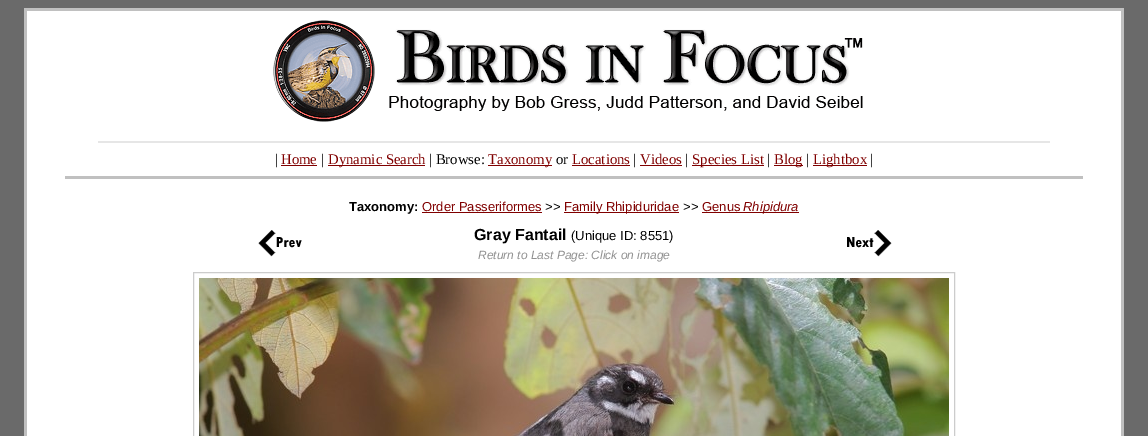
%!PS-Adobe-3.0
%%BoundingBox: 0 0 1148 436
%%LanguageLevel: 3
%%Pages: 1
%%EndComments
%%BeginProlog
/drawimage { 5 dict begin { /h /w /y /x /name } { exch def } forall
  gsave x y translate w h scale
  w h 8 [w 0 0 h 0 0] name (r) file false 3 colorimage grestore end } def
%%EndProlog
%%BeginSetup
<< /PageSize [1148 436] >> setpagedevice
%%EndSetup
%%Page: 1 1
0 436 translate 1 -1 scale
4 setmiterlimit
0.416 setgray
0 0 1148 436 rectfill
1 setgray
27 11 1094 425 rectfill
0.753 setgray
24 8 1100 3 rectfill
1121 8 3 428 rectfill
24 8 3 428 rectfill
(images/1.raw) 273 20 590 102 drawimage
0.902 setgray
98 141 952 2 rectfill
0.502 0 0 setrgbcolor
281 165 36 1 rectfill
328 165 97 1 rectfill
488 165 64 1 rectfill
572 165 58 1 rectfill
640 165 42 1 rectfill
692 165 72 1 rectfill
774 165 29 1 rectfill
813 165 54 1 rectfill
0.753 setgray
65 176 1018 3 rectfill
0.502 0 0 setrgbcolor
422 212 120 1 rectfill
564 212 115 1 rectfill
702 212 97 1 rectfill
(images/2.raw) 258 230 44 27 drawimage
(images/3.raw) 847 230 45 27 drawimage
0.8 setgray
193.5 272.5 761 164 rectstroke
(images/4.raw) 199 278 750 158 drawimage
/LiberationSerif-Regular [14.75 0 0 -14.75 0 0] selectfont
0 setgray
275 164 moveto (|) show
0.502 0 0 setrgbcolor
281 164 moveto (Home) show
0 setgray
321 164 moveto (|) show
0.502 0 0 setrgbcolor
328 164 moveto (Dynamic Search) show
0 setgray
429 164 moveto (| Browse:) show
0.502 0 0 setrgbcolor
488 164 moveto (Taxonomy) show
0 setgray
556 164 moveto (or) show
0.502 0 0 setrgbcolor
572 164 moveto (Locations) show
0 setgray
633 164 moveto (|) show
0.502 0 0 setrgbcolor
640 164 moveto (Videos) show
0 setgray
685 164 moveto (|) show
0.502 0 0 setrgbcolor
692 164 moveto (Species List) show
0 setgray
767 164 moveto (|) show
0.502 0 0 setrgbcolor
774 164 moveto (Blog) show
0 setgray
806 164 moveto (|) show
0.502 0 0 setrgbcolor
813 164 moveto (Lightbox) show
0 setgray
870 164 moveto (|) show
/LiberationSans-Bold [13 0 0 -13 0 0] selectfont
349 211 moveto (Taxonomy:) show
/LiberationSans-Regular [13 0 0 -13 0 0] selectfont
0.502 0 0 setrgbcolor
422 211 moveto (Order Passeriformes) show
0 setgray
545 211 moveto (>>) show
0.502 0 0 setrgbcolor
564 211 moveto (Family Rhipiduridae) show
0 setgray
683 211 moveto (>>) show
0.502 0 0 setrgbcolor
702 211 moveto (Genus) show
/LiberationSans-Italic [13 0 0 -13 0 0] selectfont
743 211 moveto (Rhipidura) show
/LiberationSans-Bold [16 0 0 -16 0 0] selectfont
0 setgray
474 240 moveto (Gray Fantail) show
/LiberationSans-Regular [13 0 0 -13 0 0] selectfont
571 240 moveto (\(Unique ID: 8551\)) show
/LiberationSans-Italic [12 0 0 -12 0 0] selectfont
0.569 setgray
478 259 moveto (Return to Last Page: Click on image) show
showpage
%%EOF
